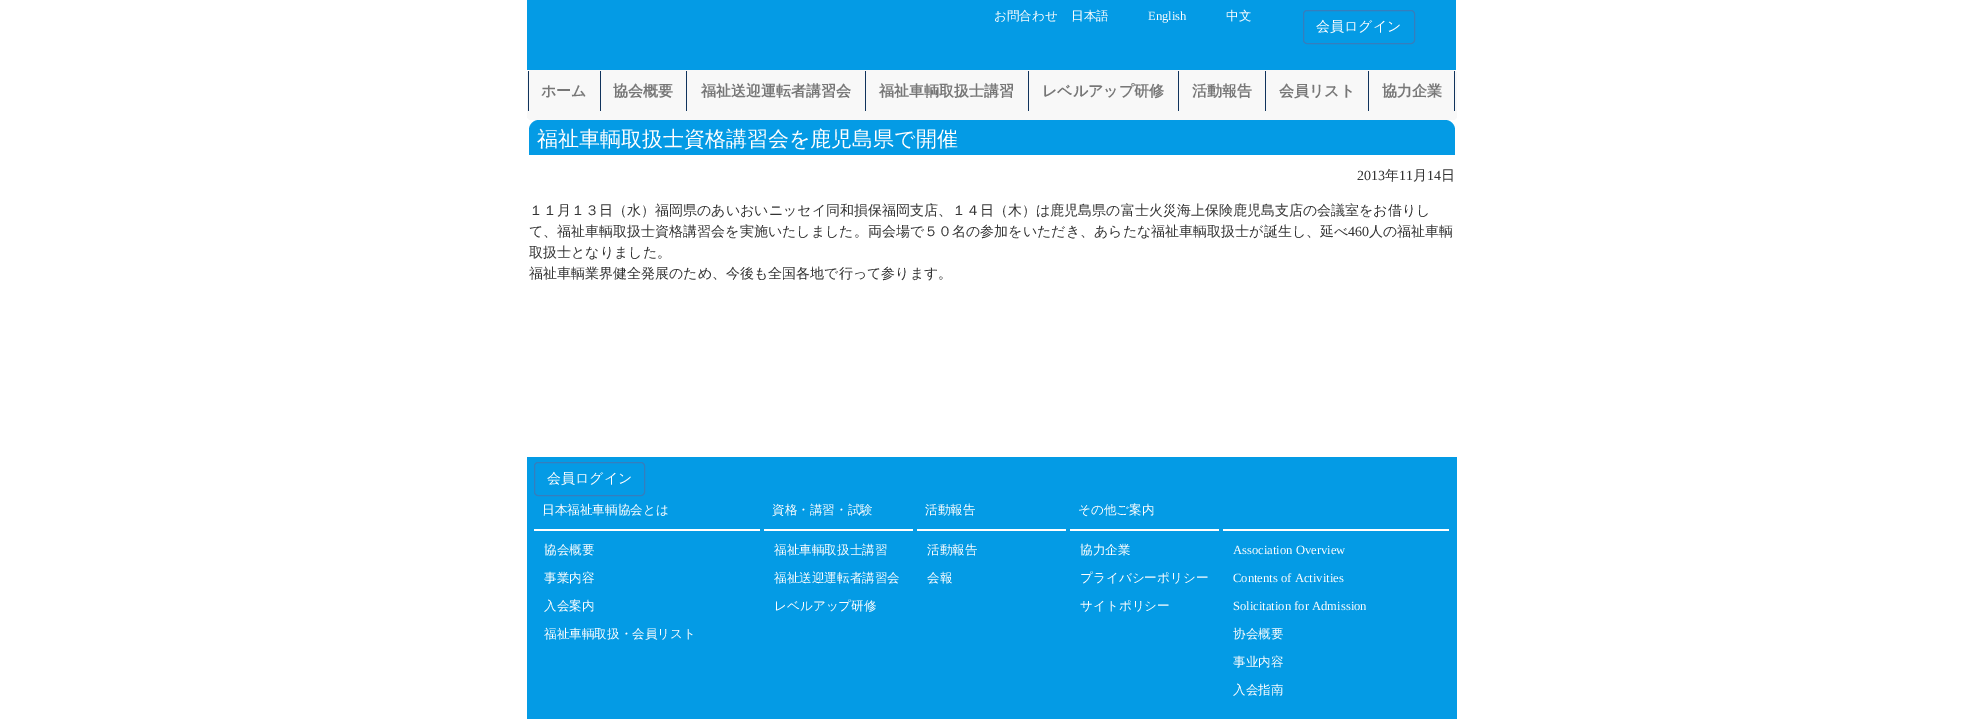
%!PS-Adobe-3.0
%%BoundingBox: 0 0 1983 719
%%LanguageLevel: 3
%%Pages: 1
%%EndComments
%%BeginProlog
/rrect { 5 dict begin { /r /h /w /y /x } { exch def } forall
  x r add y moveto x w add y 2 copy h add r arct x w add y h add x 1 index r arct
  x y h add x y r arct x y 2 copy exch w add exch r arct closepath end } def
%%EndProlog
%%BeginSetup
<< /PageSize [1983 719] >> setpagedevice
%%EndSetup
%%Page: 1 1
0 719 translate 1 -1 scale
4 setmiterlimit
1 setgray
0 0 1983 719 rectfill
0.016 0.608 0.898 setrgbcolor
527 0 929 70 rectfill
0.208 0.494 0.741 setrgbcolor
1303.5 10.5 111 33 3.5 rrect stroke
0.973 setgray
527 70 930 50 4 rrect fill
0.063 0.2 0.361 setrgbcolor
600 71 1 40 rectfill
528 71 1 40 rectfill
686 71 1 40 rectfill
865 71 1 40 rectfill
1028 71 1 40 rectfill
1178 71 1 40 rectfill
1265 71 1 40 rectfill
1368 71 1 40 rectfill
1454 71 1 40 rectfill
0.016 0.608 0.898 setrgbcolor
newpath 539 120 moveto 1445 120 lineto 1450.5 120 1455 124.5 1455 130 curveto 1455 155 lineto 529 155 lineto 529 130 lineto 529 124.5 533.5 120 539 120 curveto closepath fill
527 457 930 262 rectfill
0.208 0.494 0.741 setrgbcolor
534.5 462.5 110 33 3.5 rrect stroke
1 setgray
534 529 226 2 rectfill
764 529 149 2 rectfill
917 529 149 2 rectfill
1070 529 149 2 rectfill
1223 529 226 2 rectfill
/WenQuanYiZenHei-Medium [12.6 0 0 -12.6 0 0] selectfont
994 20 moveto (お問合わせ) show
1071 20 moveto (日本語) show
/LiberationSerif-Regular [12.6 0 0 -12.6 0 0] selectfont
1148 20 moveto (English) show
/WenQuanYiZenHei-Medium [12.6 0 0 -12.6 0 0] selectfont
1226 20 moveto (中文) show
/WenQuanYiZenHei-Medium [14 0 0 -14 0 0] selectfont
1316 31 moveto (会員ログイン) show
/WenQuanYiZenHei-Bold [15 0 0 -15 0 0] selectfont
0.467 setgray
541 96 moveto (ホーム) show
613 96 moveto (協会概要) show
701 96 moveto (福祉送迎運転者講習会) show
879 96 moveto (福祉車輌取扱士講習) show
1042 96 moveto (レベルアップ研修) show
1192 96 moveto (活動報告) show
1279 96 moveto (会員リスト) show
1382 96 moveto (協力企業) show
/WenQuanYiZenHei-Medium [21 0 0 -21 0 0] selectfont
1 setgray
537 146 moveto (福祉車輌取扱士資格講習会を鹿児島県で開催) show
/LiberationSerif-Regular [14 0 0 -14 0 0] selectfont
0.2 setgray
1357 180 moveto (2013) show
/WenQuanYiZenHei-Medium [14 0 0 -14 0 0] selectfont
1385 180 moveto (年) show
/LiberationSerif-Regular [14 0 0 -14 0 0] selectfont
1399 180 moveto (11) show
/WenQuanYiZenHei-Medium [14 0 0 -14 0 0] selectfont
1413 180 moveto (月) show
/LiberationSerif-Regular [14 0 0 -14 0 0] selectfont
1427 180 moveto (14) show
/WenQuanYiZenHei-Medium [14 0 0 -14 0 0] selectfont
1441 180 moveto (日) show
529 215 moveto (１１月１３日（水）福岡県のあいおいニッセイ同和損保福岡支店、１４日（木）は鹿児島県の富士火災海上保険鹿児島支店の会議室をお借りし) show
529 236 moveto (て、福祉車輌取扱士資格講習会を実施いたしました。両会場で５０名の参加をいただき、あらたな福祉車輌取扱士が誕生し、延べ) show
/LiberationSerif-Regular [14 0 0 -14 0 0] selectfont
1348 236 moveto (460) show
/WenQuanYiZenHei-Medium [14 0 0 -14 0 0] selectfont
1369 236 moveto (人の福祉車輌) show
529 257 moveto (取扱士となりました。) show
529 278 moveto (福祉車輌業界健全発展のため、今後も全国各地で行って参ります。) show
1 setgray
547 483 moveto (会員ログイン) show
/WenQuanYiZenHei-Medium [12.6 0 0 -12.6 0 0] selectfont
542 514 moveto (日本福祉車輌協会とは) show
544 554 moveto (協会概要) show
544 582 moveto (事業内容) show
544 610 moveto (入会案内) show
544 638 moveto (福祉車輌取扱・会員リスト) show
772 514 moveto (資格・講習・試験) show
774 554 moveto (福祉車輌取扱士講習) show
774 582 moveto (福祉送迎運転者講習会) show
774 610 moveto (レベルアップ研修) show
925 514 moveto (活動報告) show
927 554 moveto (活動報告) show
927 582 moveto (会報) show
1078 514 moveto (その他ご案内) show
1080 554 moveto (協力企業) show
1080 582 moveto (プライバシーポリシー) show
1080 610 moveto (サイトポリシー) show
/LiberationSerif-Regular [12.6 0 0 -12.6 0 0] selectfont
1233 554 moveto (Association Overview) show
1233 582 moveto (Contents of Activities) show
1233 610 moveto (Solicitation for Admission) show
/WenQuanYiZenHei-Medium [12.6 0 0 -12.6 0 0] selectfont
1233 638 moveto (协会概要) show
1233 666 moveto (事业内容) show
1233 694 moveto (入会指南) show
showpage
%%EOF
